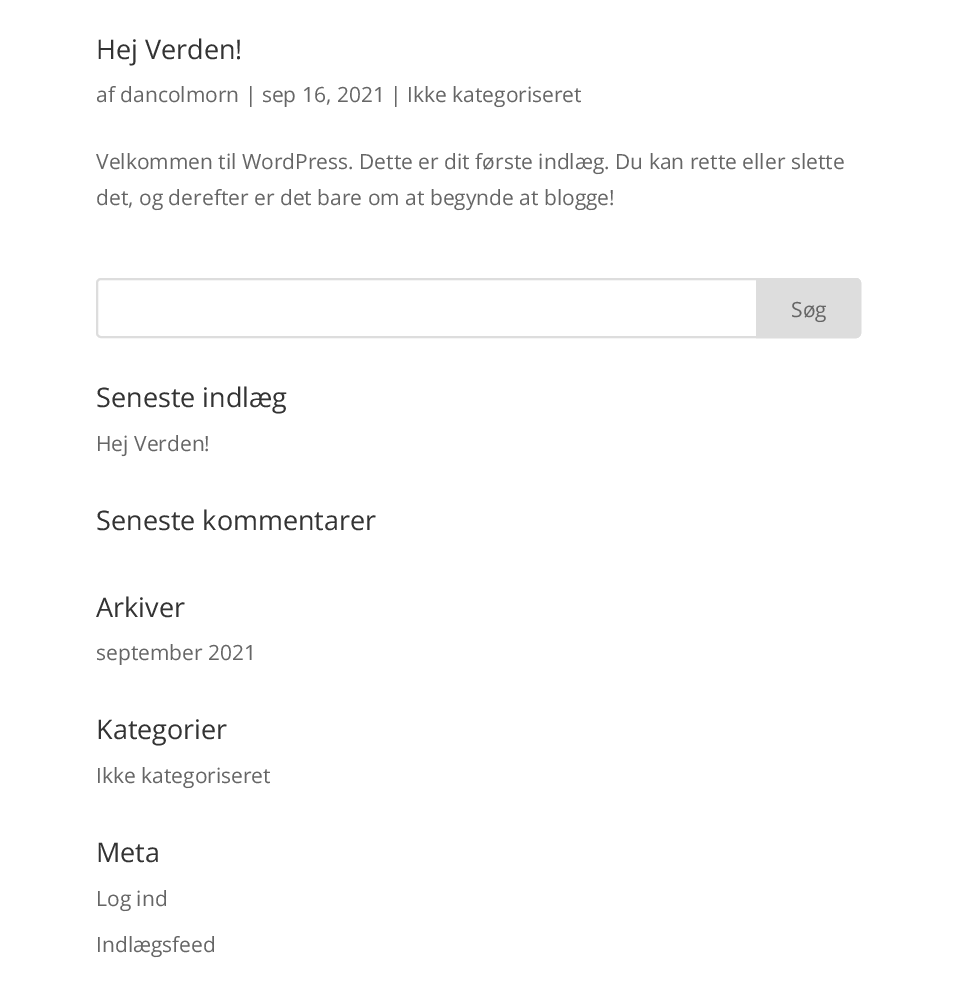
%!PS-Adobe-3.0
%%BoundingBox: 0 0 957 989
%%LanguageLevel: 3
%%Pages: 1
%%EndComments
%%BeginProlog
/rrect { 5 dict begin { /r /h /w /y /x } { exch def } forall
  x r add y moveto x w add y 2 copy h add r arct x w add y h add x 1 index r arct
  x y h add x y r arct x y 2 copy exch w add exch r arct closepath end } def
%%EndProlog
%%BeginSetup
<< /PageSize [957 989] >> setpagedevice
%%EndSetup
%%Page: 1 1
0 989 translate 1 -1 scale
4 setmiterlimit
1 setgray
0 0 957 989 rectfill
0.867 setgray
2 setlinewidth
97 279 763 58 4 rrect stroke
newpath 757 279 moveto 856 279 lineto 858 279 860 281 860 283 curveto 860 333 lineto 860 335 858 337 856 337 curveto 757 337 lineto closepath gsave fill grestore
stroke
/OpenSans-Regular [27 0 0 -27 0 0] selectfont
0.2 setgray
96 59 moveto (Hej Verden!) show
/OpenSans-Regular [21 0 0 -21 0 0] selectfont
0.4 setgray
96 102 moveto (af dancolmorn | sep 16, 2021 | Ikke kategoriseret) show
96 169 moveto (Velkommen til WordPress. Dette er dit første indlæg. Du kan rette eller slette) show
96 205 moveto (det, og derefter er det bare om at begynde at blogge!) show
791 317 moveto (Søg) show
/OpenSans-Regular [27 0 0 -27 0 0] selectfont
0.2 setgray
96 407 moveto (Seneste indlæg) show
/OpenSans-Regular [21 0 0 -21 0 0] selectfont
0.4 setgray
96 451 moveto (Hej Verden!) show
/OpenSans-Regular [27 0 0 -27 0 0] selectfont
0.2 setgray
96 530 moveto (Seneste kommentarer) show
96 617 moveto (Arkiver) show
/OpenSans-Regular [21 0 0 -21 0 0] selectfont
0.4 setgray
96 660 moveto (september 2021) show
/OpenSans-Regular [27 0 0 -27 0 0] selectfont
0.2 setgray
96 739 moveto (Kategorier) show
/OpenSans-Regular [21 0 0 -21 0 0] selectfont
0.4 setgray
96 783 moveto (Ikke kategoriseret) show
/OpenSans-Regular [27 0 0 -27 0 0] selectfont
0.2 setgray
96 862 moveto (Meta) show
/OpenSans-Regular [21 0 0 -21 0 0] selectfont
0.4 setgray
96 906 moveto (Log ind) show
96 952 moveto (Indlægsfeed) show
showpage
%%EOF
